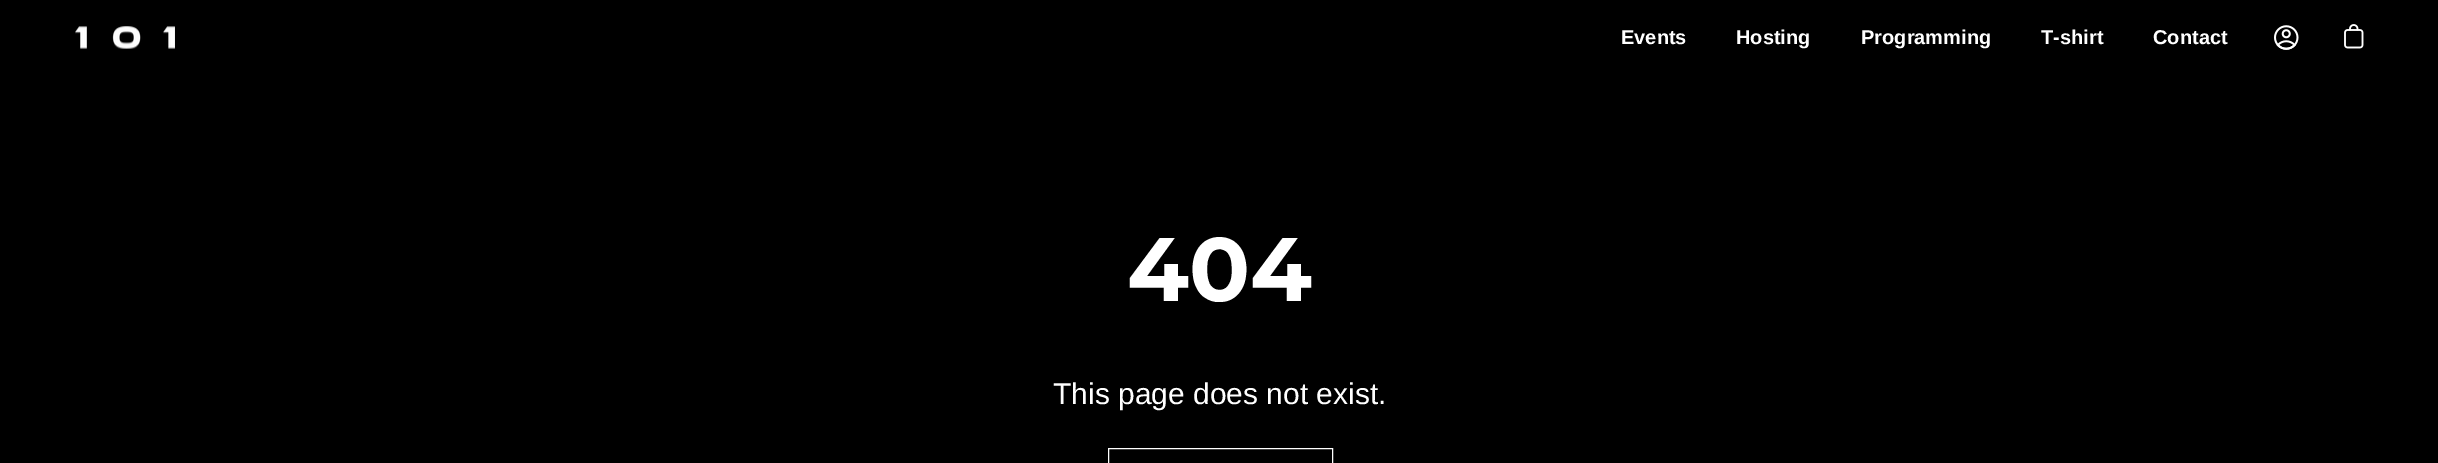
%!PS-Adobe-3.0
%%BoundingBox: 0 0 2438 463
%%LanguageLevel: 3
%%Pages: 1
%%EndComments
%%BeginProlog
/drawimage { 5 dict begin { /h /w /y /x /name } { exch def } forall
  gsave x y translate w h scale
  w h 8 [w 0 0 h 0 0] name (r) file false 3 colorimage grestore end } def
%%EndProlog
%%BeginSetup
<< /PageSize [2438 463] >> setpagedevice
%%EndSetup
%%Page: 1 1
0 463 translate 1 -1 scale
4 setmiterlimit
0 setgray
0 0 2438 463 rectfill
(images/1.raw) 75 26 100 23 drawimage
(images/2.raw) 2274 25 25 25 drawimage
(images/3.raw) 2344 24 20 25 drawimage
1 setgray
1108.5 448.5 224 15 rectstroke
/LiberationSans-Bold [20 0 0 -20 0 0] selectfont
1621 44 moveto (Events) show
1736 44 moveto (Hosting) show
1861 44 moveto (Programming) show
2041 44 moveto (T-shirt) show
2153 44 moveto (Contact) show
/Montserrat-Bold [90 0 0 -90 0 0] selectfont
1127 301 moveto (404) show
/LiberationSans-Regular [30 0 0 -30 0 0] selectfont
1053 404 moveto (This page does not exist.) show
showpage
%%EOF
